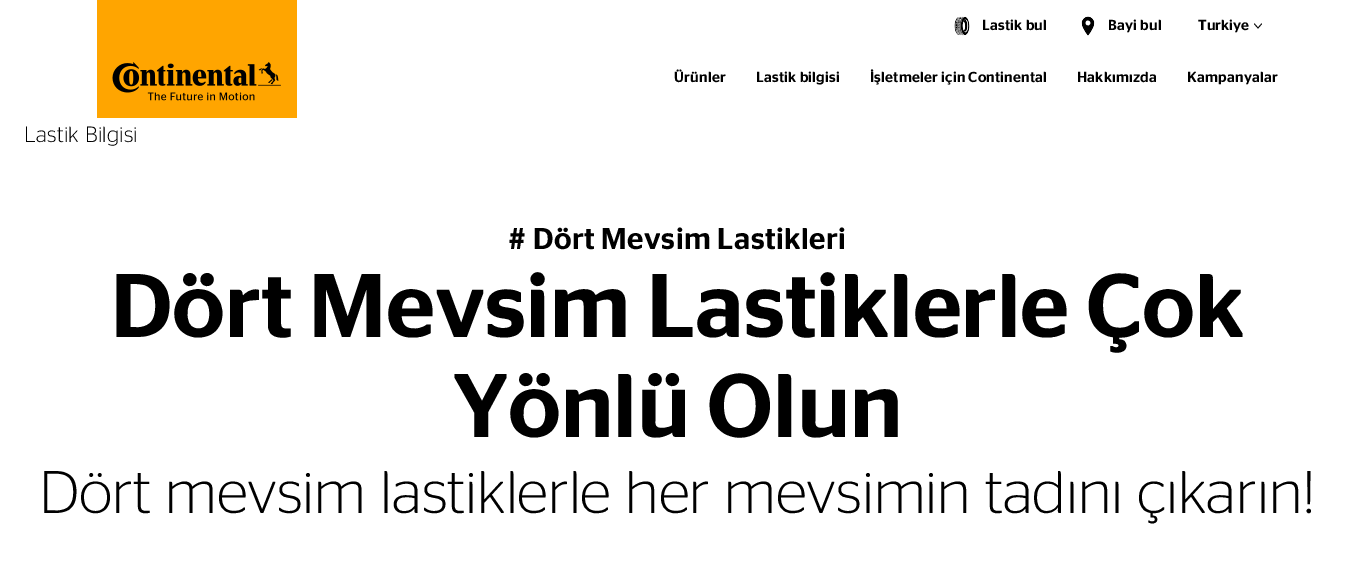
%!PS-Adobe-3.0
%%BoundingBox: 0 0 1370 574
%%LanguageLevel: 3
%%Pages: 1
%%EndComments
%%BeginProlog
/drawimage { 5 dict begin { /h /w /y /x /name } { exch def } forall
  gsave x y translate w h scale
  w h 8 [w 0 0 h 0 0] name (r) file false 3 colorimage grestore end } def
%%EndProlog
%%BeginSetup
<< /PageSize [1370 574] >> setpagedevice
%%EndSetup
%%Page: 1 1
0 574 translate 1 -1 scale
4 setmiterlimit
1 setgray
0 0 1370 574 rectfill
1 0.647 0 setrgbcolor
97 0 200 62 rectfill
(images/1.raw) 97 62 200 56 drawimage
(images/2.raw) 954 16 16 20 drawimage
(images/3.raw) 1081 16 14 20 drawimage
0 setgray
0.8 setlinewidth
1 setlinecap
1 setlinejoin
newpath 1254.5 24 moveto 1258 28 lineto 1261.5 24 lineto stroke
/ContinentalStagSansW-Medium [14.5 0 0 -14.5 0 0] selectfont
982 30 moveto 0.25 0 (Lastik bul) ashow
1108 30 moveto 0.25 0 (Bayi bul) ashow
1198 30 moveto (Turkiye) show
674 82 moveto 0.25 0 (Ürünler) ashow
756 82 moveto 0.25 0 (Lastik bilgisi) ashow
870 82 moveto 0.25 0 (İşletmeler için Continental) ashow
1077 82 moveto 0.25 0 (Hakkımızda) ashow
1187 82 moveto 0.25 0 (Kampanyalar) ashow
/ContinentalStagSansW-Light [22 0 0 -22 0 0] selectfont
24 142 moveto 0.25 0 (Lastik Bilgisi) ashow
/ContinentalStagSansW-Medium [30 0 0 -30 0 0] selectfont
508 249 moveto 0.5 0 (# Dört Mevsim Lastikleri) ashow
/ContinentalStagSansW-Medium [90 0 0 -90 0 0] selectfont
111 337 moveto (Dört Mevsim Lastiklerle Çok) show
453 437 moveto (Yönlü Olun) show
/ContinentalStagSansW-Light [60 0 0 -60 0 0] selectfont
39 513 moveto (Dört mevsim lastiklerle her mevsimin tadını çıkarın!) show
showpage
%%EOF
